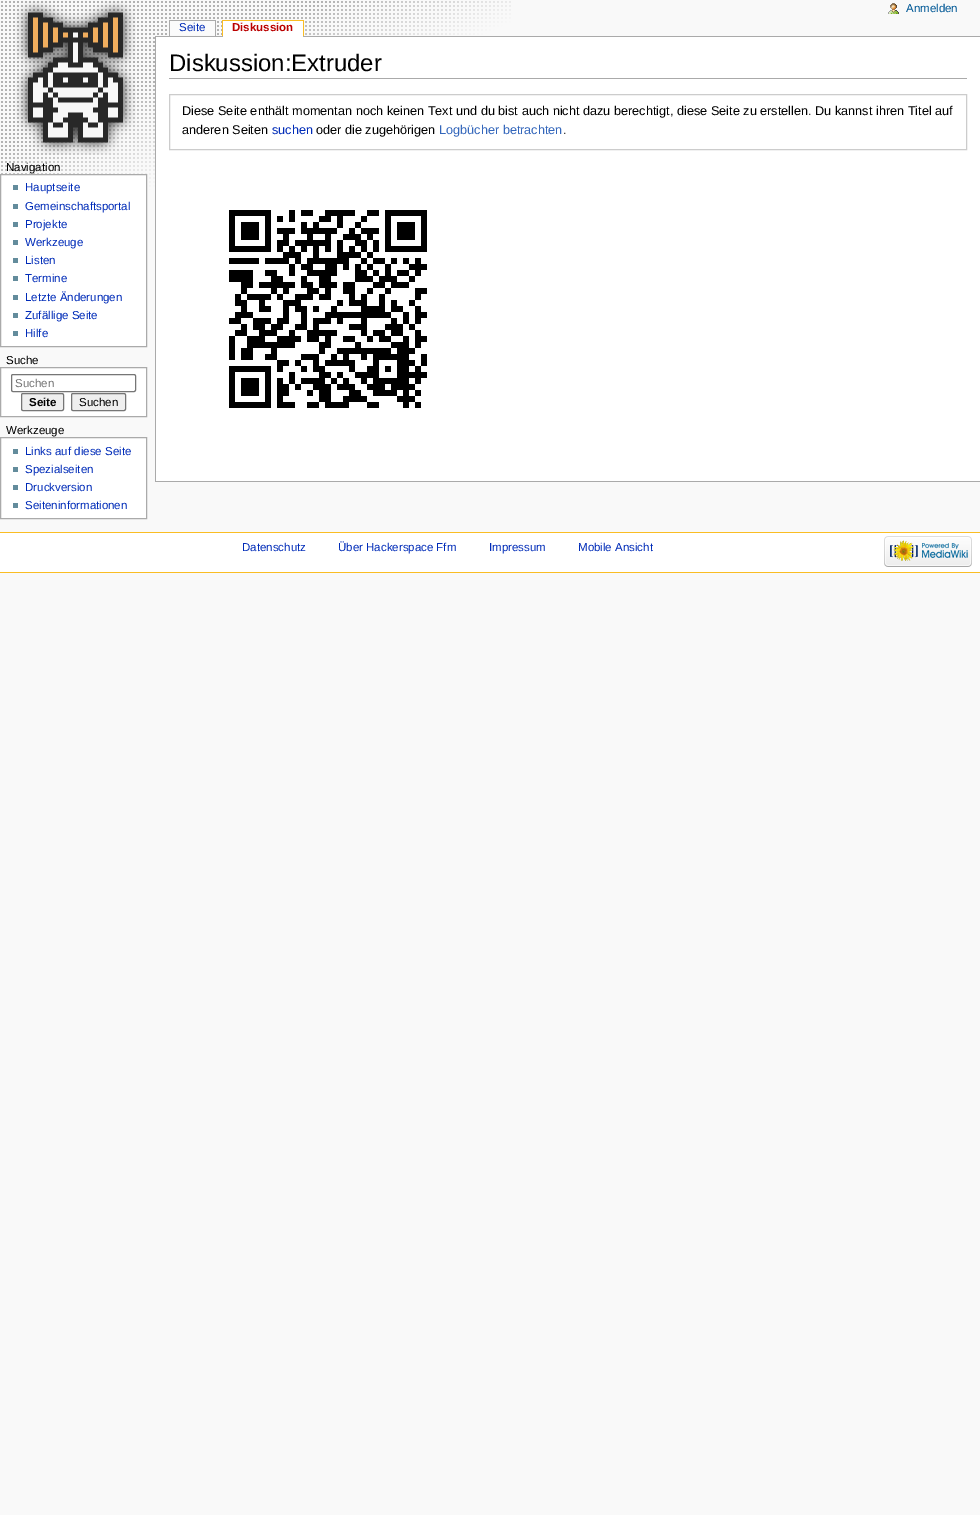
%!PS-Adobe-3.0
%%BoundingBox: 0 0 980 1515
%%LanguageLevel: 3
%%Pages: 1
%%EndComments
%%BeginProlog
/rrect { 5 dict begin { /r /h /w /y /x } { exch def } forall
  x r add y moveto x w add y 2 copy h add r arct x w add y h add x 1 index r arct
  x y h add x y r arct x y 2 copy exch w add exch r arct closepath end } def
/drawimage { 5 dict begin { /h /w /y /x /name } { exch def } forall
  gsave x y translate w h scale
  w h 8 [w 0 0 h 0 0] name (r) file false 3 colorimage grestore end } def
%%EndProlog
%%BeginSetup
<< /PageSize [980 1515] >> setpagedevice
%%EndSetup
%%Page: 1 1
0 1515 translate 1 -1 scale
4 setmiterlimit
0.976 setgray
0 0 980 1515 rectfill
(images/1.raw) 1 1 510 189 drawimage
(images/2.raw) 15 1 121 154 drawimage
(images/3.raw) 888 3 11 11 drawimage
0.667 setgray
169 20 47 1 rectfill
215 20 1 16 rectfill
169 20 1 16 rectfill
0.984 setgray
170 21 45 14 rectfill
0.98 0.741 0.137 setrgbcolor
222 20 82 1 rectfill
303 20 1 16 rectfill
222 20 1 16 rectfill
0.667 setgray
155 36 825 1 rectfill
1 setgray
223 21 80 16 rectfill
newpath 0.5 174.5 moveto 146.5 174.5 lineto 146.5 346.5 lineto 0.5 346.5 lineto closepath gsave fill grestore
0.667 setgray
stroke
0.388 0.549 0.612 setrgbcolor
13 185 5 5 rectfill
13 204 5 5 rectfill
13 222 5 5 rectfill
13 240 5 5 rectfill
13 258 5 5 rectfill
13 276 5 5 rectfill
13 295 5 5 rectfill
13 313 5 5 rectfill
13 331 5 5 rectfill
1 setgray
newpath 0.5 367.5 moveto 146.5 367.5 lineto 146.5 416.5 lineto 0.5 416.5 lineto closepath gsave fill grestore
0.667 setgray
stroke
0.463 setgray
11.5 374.5 124 17 1.5 rrect stroke
0.937 setgray
21.5 393.5 42 17 1.5 rrect gsave fill grestore
0.463 setgray
stroke
0.937 setgray
71.5 393.5 54 17 1.5 rrect gsave fill grestore
0.463 setgray
stroke
1 setgray
newpath 0.5 437.5 moveto 146.5 437.5 lineto 146.5 518.5 lineto 0.5 518.5 lineto closepath gsave fill grestore
0.667 setgray
stroke
0.388 0.549 0.612 setrgbcolor
13 449 5 5 rectfill
13 467 5 5 rectfill
13 485 5 5 rectfill
13 503 5 5 rectfill
1 setgray
156 37 824 444 rectfill
0.667 setgray
155 481 825 1 rectfill
155 36 1 446 rectfill
169 78 798 1 rectfill
0.8 setgray
169.5 94.5 797 55 rectstroke
(images/4.raw) 229 210 198 198 drawimage
1 setgray
0 533 980 39 rectfill
0.98 0.741 0.137 setrgbcolor
0 532 980 1 rectfill
0 572 980 1 rectfill
(images/5.raw) 884 536 88 31 drawimage
/LiberationSans-Regular [11.5 0 0 -11.5 0 0] selectfont
0 0.345 0.588 setrgbcolor
906 12 moveto (Anmelden) show
0 0.169 0.722 setrgbcolor
179 31 moveto (Seite) show
/LiberationSans-Bold [11.5 0 0 -11.5 0 0] selectfont
0.729 0 0 setrgbcolor
232 31 moveto (Diskussion) show
/LiberationSans-Regular [11.5 0 0 -11.5 0 0] selectfont
0 setgray
6 171 moveto (Navigation) show
0 0.169 0.722 setrgbcolor
25 191 moveto (Hauptseite) show
25 210 moveto (Gemeinschaftsportal) show
25 228 moveto (Projekte) show
25 246 moveto (Werkzeuge) show
25 264 moveto (Listen) show
25 282 moveto (Termine) show
25 301 moveto (Letzte Änderungen) show
25 319 moveto (Zufällige Seite) show
25 337 moveto (Hilfe) show
0 setgray
6 364 moveto (Suche) show
0.459 setgray
15 387 moveto (Suchen) show
/LiberationSans-Bold [11.5 0 0 -11.5 0 0] selectfont
0 setgray
29 406 moveto (Seite) show
/LiberationSans-Regular [11.5 0 0 -11.5 0 0] selectfont
79 406 moveto (Suchen) show
6 434 moveto (Werkzeuge) show
0 0.169 0.722 setrgbcolor
25 455 moveto (Links auf diese Seite) show
25 473 moveto (Spezialseiten) show
25 491 moveto (Druckversion) show
25 509 moveto (Seiteninformationen) show
/LiberationSans-Regular [23.9 0 0 -23.9 0 0] selectfont
0 setgray
169 71 moveto (Diskussion:Extruder) show
/LiberationSans-Regular [12.7 0 0 -12.7 0 0] selectfont
182 115 moveto (Diese Seite enthält momentan noch keinen Text und du bist auch nicht dazu berechtigt, diese Seite zu erstellen. Du kannst ihren Titel auf) show
182 134 moveto (anderen Seiten) show
0 0.169 0.722 setrgbcolor
272 134 moveto (suchen) show
0 setgray
316 134 moveto (oder die zugehörigen) show
0.2 0.4 0.733 setrgbcolor
439 134 moveto (Logbücher betrachten) show
0 setgray
563 134 moveto (.) show
/LiberationSans-Regular [11.5 0 0 -11.5 0 0] selectfont
0 0.169 0.722 setrgbcolor
242 551 moveto (Datenschutz) show
338 551 moveto (Über Hackerspace Ffm) show
489 551 moveto (Impressum) show
578 551 moveto (Mobile Ansicht) show
showpage
%%EOF
